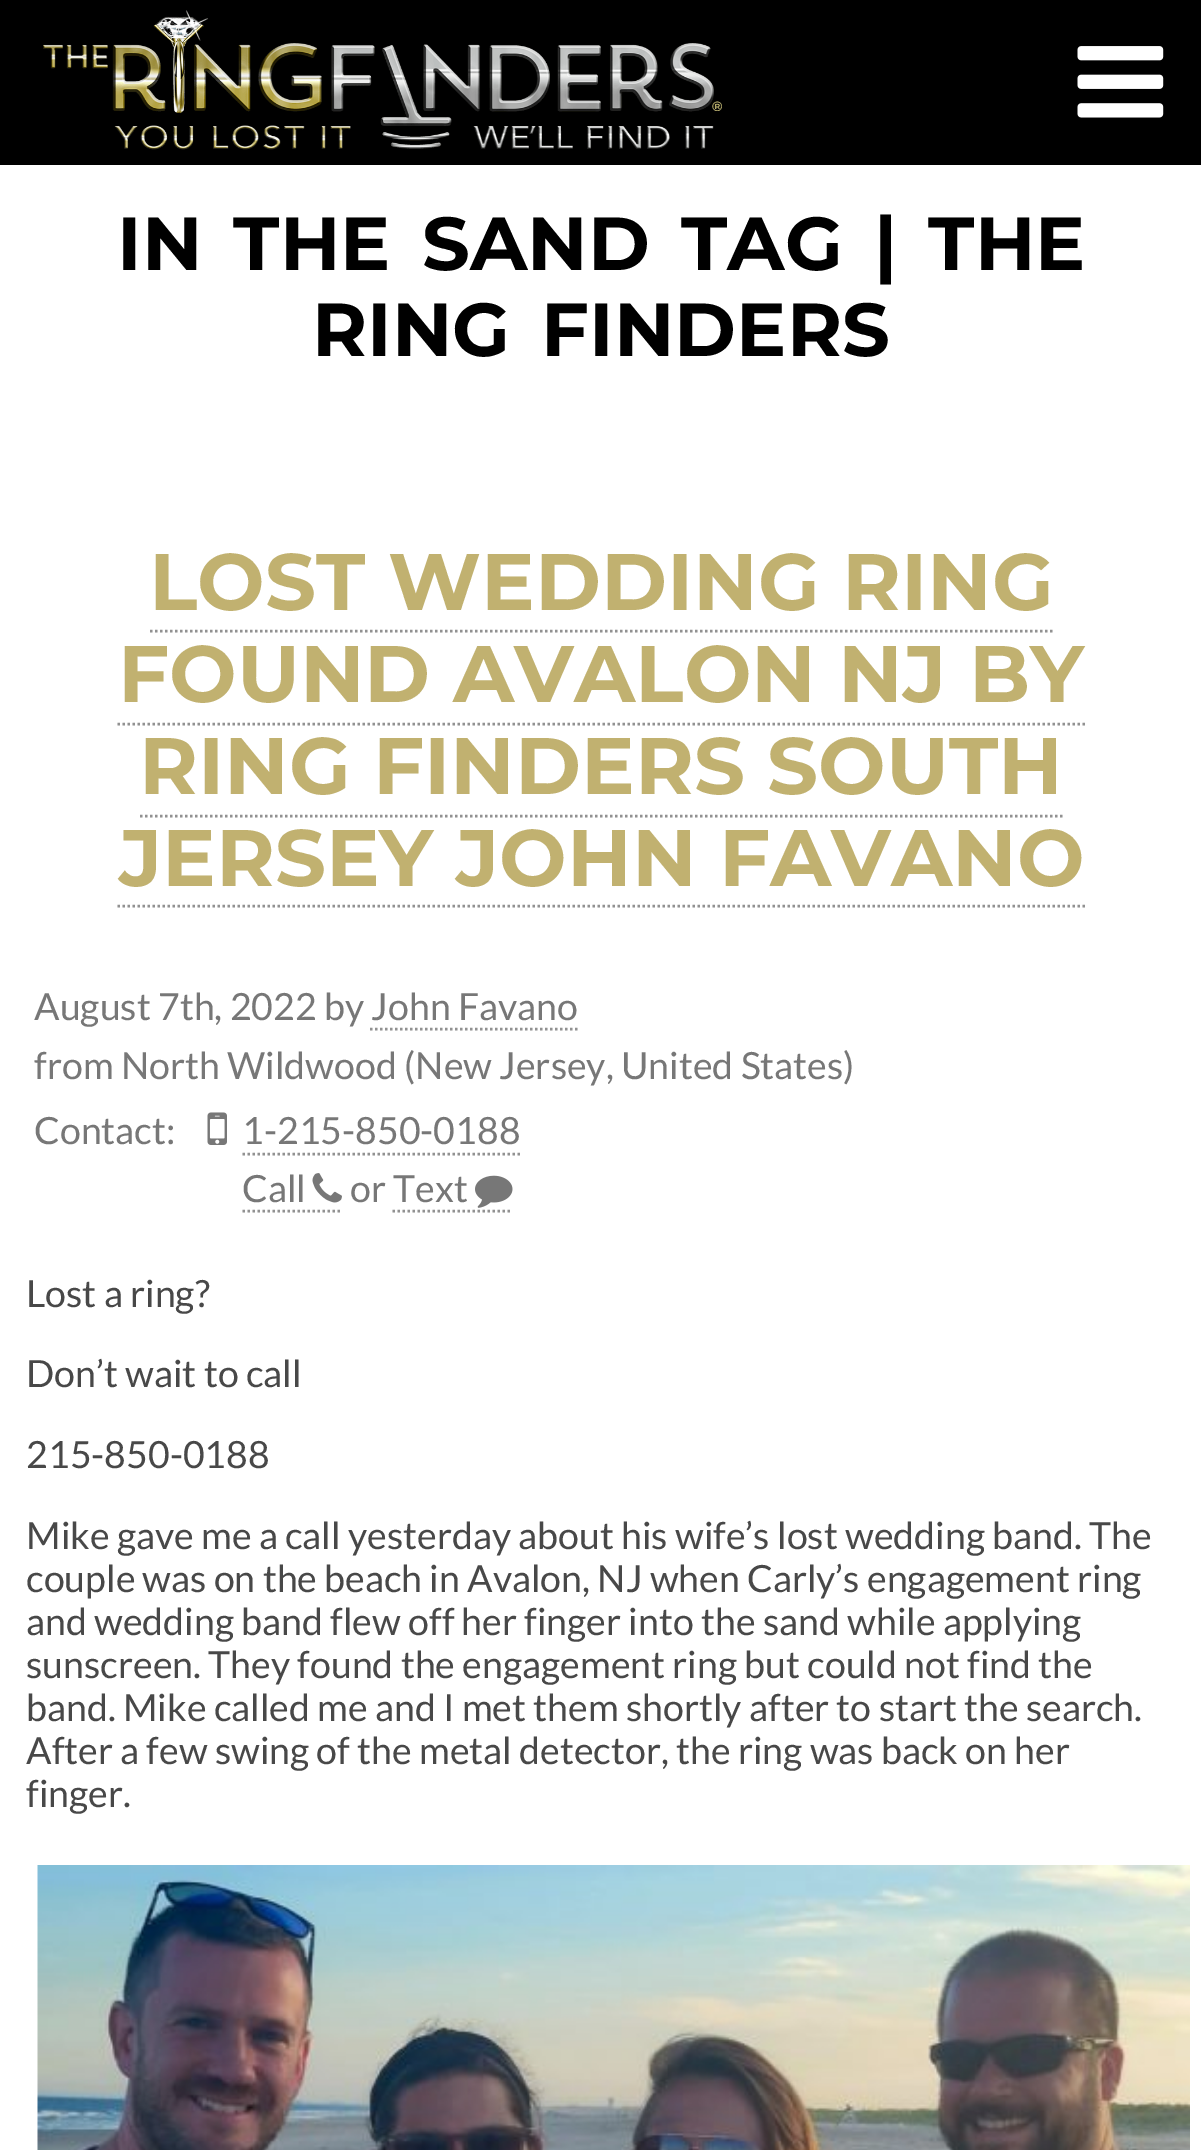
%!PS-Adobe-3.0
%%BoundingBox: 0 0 1201 2150
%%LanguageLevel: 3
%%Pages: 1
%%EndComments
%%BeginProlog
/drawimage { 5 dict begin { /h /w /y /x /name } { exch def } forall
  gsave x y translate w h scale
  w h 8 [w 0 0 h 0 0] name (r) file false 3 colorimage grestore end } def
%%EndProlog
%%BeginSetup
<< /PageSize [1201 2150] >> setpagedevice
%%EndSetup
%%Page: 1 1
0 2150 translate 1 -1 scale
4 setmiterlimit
1 setgray
0 0 1201 2150 rectfill
0 setgray
0 0 1201 165 rectfill
(images/1.raw) 43 10 679 140 drawimage
(images/2.raw) 1077 46 87 72 drawimage
0.569 setgray
2.5 setlinewidth
[2.5 2.5] 0 setdash
newpath 150 631 moveto 1052.5 631 lineto stroke
newpath 117.5 724 moveto 1085 724 lineto stroke
newpath 140 816 moveto 1062.5 816 lineto stroke
newpath 117.5 906 moveto 1085 906 lineto stroke
newpath 370 1029 moveto 577.5 1029 lineto stroke
(images/3.raw) 207 1112 20 33 drawimage
newpath 242.5 1154 moveto 520 1154 lineto stroke
newpath 242.5 1211 moveto 342.5 1211 lineto stroke
(images/4.raw) 312 1173 30 30 drawimage
newpath 392.5 1211 moveto 512.5 1211 lineto stroke
(images/5.raw) 475 1175 38 33 drawimage
(images/6.raw) 37 1865 1153 285 drawimage
/Montserrat-Thin [75 0 0 -75 0 0] selectfont
0 setgray
117 270 moveto 10 0 32 (IN THE SAND TAG | THE) widthshow
312 356 moveto 10 0 32 (RING FINDERS) widthshow
/Montserrat-Thin [80 0 0 -80 0 0] selectfont
0.757 0.694 0.439 setrgbcolor
149 610 moveto (LOST WEDDING RING) show
118 702 moveto (FOUND AVALON NJ BY) show
139 794 moveto (RING FINDERS SOUTH) show
119 886 moveto (JERSEY JOHN FAVANO) show
/Lato-Regular [37.5 0 0 -37.5 0 0] selectfont
0.467 setgray
34 1020 moveto (August 7th, 2022 by John Favano) show
34 1079 moveto (from North Wildwood \(New Jersey, United States\)) show
34 1144 moveto (Contact:) show
242 1144 moveto (1-215-850-0188) show
242 1202 moveto (Call) show
350 1202 moveto (or Text) show
0.282 setgray
26 1307 moveto (Lost a ring?) show
26 1387 moveto (Don’t wait to call) show
26 1468 moveto (215-850-0188) show
26 1549 moveto (Mike gave me a call yesterday about his wife’s lost wedding band. The) show
26 1592 moveto (couple was on the beach in Avalon, NJ when Carly’s engagement ring) show
26 1635 moveto (and wedding band flew off her finger into the sand while applying) show
26 1678 moveto (sunscreen. They found the engagement ring but could not find the) show
26 1721 moveto (band. Mike called me and I met them shortly after to start the search.) show
26 1764 moveto (After a few swing of the metal detector, the ring was back on her) show
26 1807 moveto (finger.) show
showpage
%%EOF
